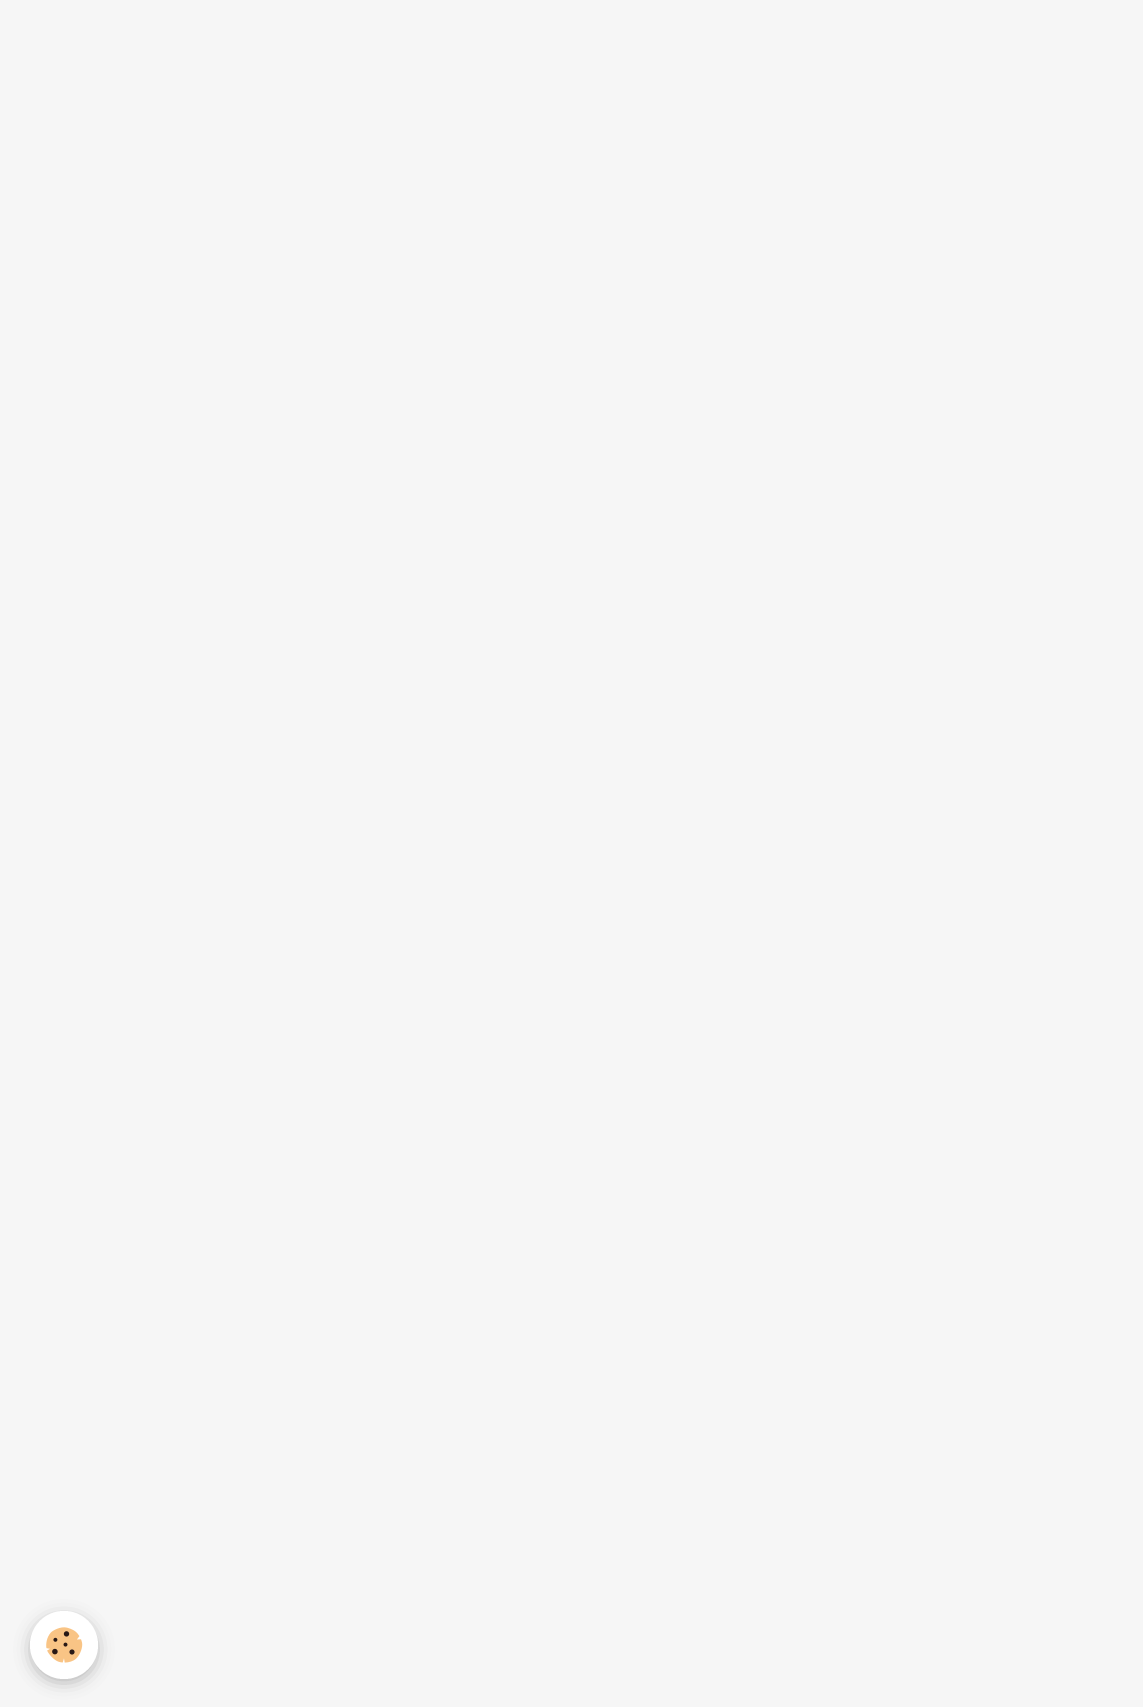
%!PS-Adobe-3.0
%%BoundingBox: 0 0 1143 1707
%%LanguageLevel: 3
%%Pages: 1
%%EndComments
%%BeginProlog
/setalpha { dup .setfillconstantalpha .setstrokeconstantalpha } def
/rrect { 5 dict begin { /r /h /w /y /x } { exch def } forall
  x r add y moveto x w add y 2 copy h add r arct x w add y h add x 1 index r arct
  x y h add x y r arct x y 2 copy exch w add exch r arct closepath end } def
/softshadow { 12 dict begin { /a /b /q /h /w /y /x } { exch def } forall gsave /was 0 def
  9 -2 -9 { dup b mul 4 div /e exch def 1 sub .425 mul 2.718 exch exp 1 add a .99 .min exch div /now exch def
    1 1 now sub 1 was sub div sub setalpha /was now def
    w h .min e 2 mul add 0 gt { x e sub y e sub w e 2 mul add h e 2 mul add
      q e add b .6 mul add w h .min 2 div e add .min 0 .max rrect fill } if } for grestore end } def
/drawimage { 5 dict begin { /h /w /y /x /name } { exch def } forall
  gsave x y translate w h scale
  w h 8 [w 0 0 h 0 0] name (r) file false 3 colorimage grestore end } def
%%EndProlog
%%BeginSetup
<< /PageSize [1143 1707] /PageUsesTransparency true >> setpagedevice
%%EndSetup
%%Page: 1 1
0 .pushpdf14devicefilter
0 1707 translate 1 -1 scale
4 setmiterlimit
0.965 setgray
0 0 1143 1707 rectfill
0 setgray
30 1616 68 67 33.5 7.5 0.24 softshadow
1 setgray
newpath 64 1645 34 0 360 arc closepath fill
(images/1.raw) 46 1627 37 36 drawimage
.poppdf14devicefilter showpage
%%EOF
